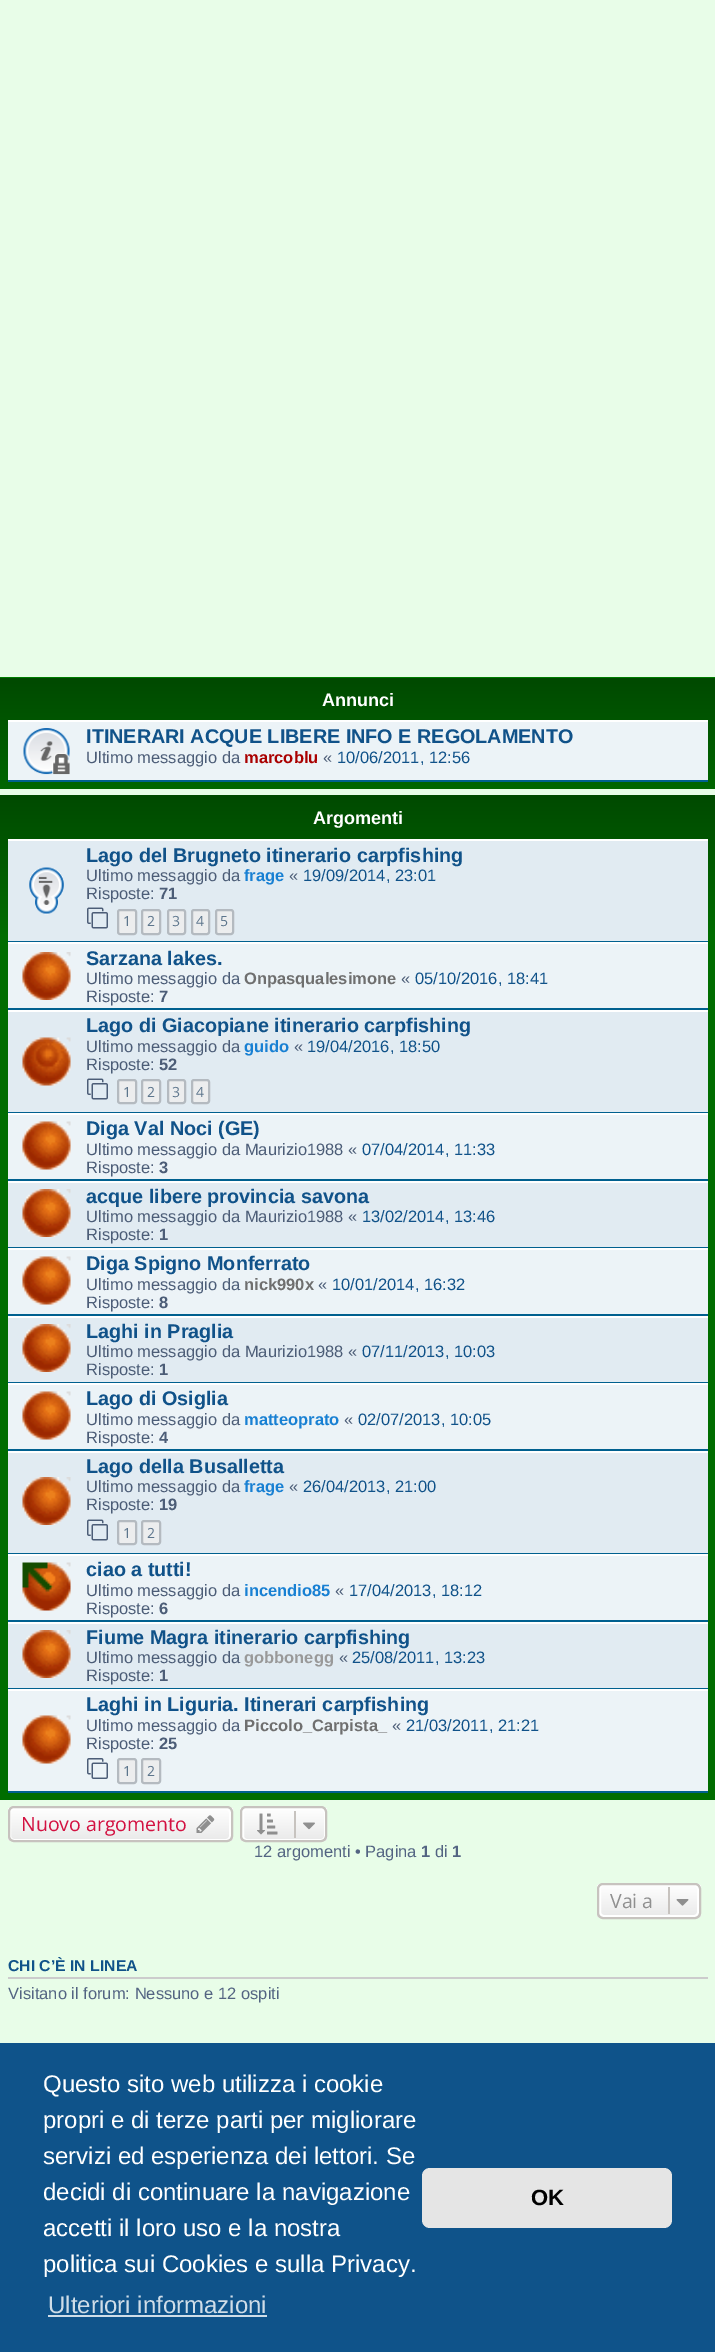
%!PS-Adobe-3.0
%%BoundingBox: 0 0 715 2352
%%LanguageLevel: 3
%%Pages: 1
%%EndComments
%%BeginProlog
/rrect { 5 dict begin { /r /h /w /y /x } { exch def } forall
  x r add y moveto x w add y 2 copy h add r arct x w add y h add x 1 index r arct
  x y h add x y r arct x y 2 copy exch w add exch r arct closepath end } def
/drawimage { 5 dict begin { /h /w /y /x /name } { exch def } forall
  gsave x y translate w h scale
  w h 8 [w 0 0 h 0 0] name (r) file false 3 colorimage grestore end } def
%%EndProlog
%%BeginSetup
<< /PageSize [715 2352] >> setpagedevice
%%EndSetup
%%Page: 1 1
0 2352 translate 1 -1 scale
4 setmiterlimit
0.91 0.992 0.91 setrgbcolor
0 0 715 2352 rectfill
gsave newpath 0 677 moveto 715 677 lineto 715 789 lineto 0 789 lineto closepath clip newpath
<< /ShadingType 2 /ColorSpace /DeviceRGB /Coords [358 677 358 814] /Extend [true true] /Function << /FunctionType 3 /Domain [0 1] /Functions [<< /FunctionType 2 /Domain [0 1] /C0 [0.008 0.604 0.008] /C1 [0 0.29 0] /N 1 >> << /FunctionType 2 /Domain [0 1] /C0 [0 0.29 0] /C1 [0 0.427 0] /N 1 >>] /Bounds [0.01] /Encode [0 1 0 1] >> >> shfill grestore
0.925 0.953 0.969 setrgbcolor
8 722 700 58 rectfill
1 setgray
8 720 700 2 rectfill
0 0.376 0.561 setrgbcolor
8 780 700 2 rectfill
(images/1.raw) 23 728 47 47 drawimage
gsave newpath 0 795 moveto 715 795 lineto 715 1800 lineto 0 1800 lineto closepath clip newpath
<< /ShadingType 2 /ColorSpace /DeviceRGB /Coords [358 795 358 1800] /Extend [true true] /Function << /FunctionType 3 /Domain [0 1] /Functions [<< /FunctionType 2 /Domain [0 1] /C0 [0 0.29 0] /C1 [0 0.427 0] /N 1 >> << /FunctionType 2 /Domain [0 1] /C0 [0 0.427 0] /C1 [0 0.427 0] /N 1 >>] /Bounds [0.14] /Encode [0 1 0 1] >> >> shfill grestore
0.882 0.922 0.949 setrgbcolor
8 841 700 100 rectfill
1 setgray
8 839 700 2 rectfill
0 0.376 0.561 setrgbcolor
8 941 700 1 rectfill
(images/2.raw) 29 867 35 48 drawimage
(images/3.raw) 87 907 21 22 drawimage
0.925 0.929 0.933 setrgbcolor
118 910 18 24 2 rrect gsave fill grestore
0.706 0.729 0.753 setrgbcolor
2 setlinewidth
stroke
0.925 0.929 0.933 setrgbcolor
142 910 18 24 2 rrect gsave fill grestore
0.706 0.729 0.753 setrgbcolor
stroke
0.925 0.929 0.933 setrgbcolor
168 910 17 24 2 rrect gsave fill grestore
0.706 0.729 0.753 setrgbcolor
stroke
0.925 0.929 0.933 setrgbcolor
192 910 17 24 2 rrect gsave fill grestore
0.706 0.729 0.753 setrgbcolor
stroke
0.925 0.929 0.933 setrgbcolor
216 910 17 24 2 rrect gsave fill grestore
0.706 0.729 0.753 setrgbcolor
stroke
0.925 0.953 0.969 setrgbcolor
8 944 700 64 rectfill
1 setgray
8 942 700 2 rectfill
0 0.376 0.561 setrgbcolor
8 1008 700 2 rectfill
(images/4.raw) 22 952 49 48 drawimage
0.882 0.922 0.949 setrgbcolor
8 1012 700 100 rectfill
1 setgray
8 1010 700 2 rectfill
0 0.376 0.561 setrgbcolor
8 1112 700 1 rectfill
(images/5.raw) 22 1037 49 49 drawimage
(images/3.raw) 87 1078 21 22 drawimage
0.925 0.929 0.933 setrgbcolor
118 1080 18 23 2 rrect gsave fill grestore
0.706 0.729 0.753 setrgbcolor
stroke
0.925 0.929 0.933 setrgbcolor
142 1080 18 23 2 rrect gsave fill grestore
0.706 0.729 0.753 setrgbcolor
stroke
0.925 0.929 0.933 setrgbcolor
168 1080 17 23 2 rrect gsave fill grestore
0.706 0.729 0.753 setrgbcolor
stroke
0.925 0.929 0.933 setrgbcolor
192 1080 17 23 2 rrect gsave fill grestore
0.706 0.729 0.753 setrgbcolor
stroke
0.925 0.953 0.969 setrgbcolor
8 1115 700 64 rectfill
1 setgray
8 1113 700 2 rectfill
0 0.376 0.561 setrgbcolor
8 1179 700 2 rectfill
(images/6.raw) 22 1121 49 49 drawimage
0.882 0.922 0.949 setrgbcolor
8 1183 700 64 rectfill
1 setgray
8 1181 700 2 rectfill
0 0.376 0.561 setrgbcolor
8 1247 700 1 rectfill
(images/7.raw) 22 1189 49 48 drawimage
0.925 0.953 0.969 setrgbcolor
8 1250 700 64 rectfill
1 setgray
8 1248 700 2 rectfill
0 0.376 0.561 setrgbcolor
8 1314 700 2 rectfill
(images/6.raw) 22 1256 49 49 drawimage
0.882 0.922 0.949 setrgbcolor
8 1318 700 64 rectfill
1 setgray
8 1316 700 2 rectfill
0 0.376 0.561 setrgbcolor
8 1382 700 1 rectfill
(images/7.raw) 22 1324 49 48 drawimage
0.925 0.953 0.969 setrgbcolor
8 1385 700 64 rectfill
1 setgray
8 1383 700 2 rectfill
0 0.376 0.561 setrgbcolor
8 1449 700 2 rectfill
(images/6.raw) 22 1391 49 49 drawimage
0.882 0.922 0.949 setrgbcolor
8 1453 700 100 rectfill
1 setgray
8 1451 700 2 rectfill
0 0.376 0.561 setrgbcolor
8 1553 700 1 rectfill
(images/7.raw) 22 1477 49 48 drawimage
(images/3.raw) 87 1519 21 22 drawimage
0.925 0.929 0.933 setrgbcolor
118 1521 18 23 2 rrect gsave fill grestore
0.706 0.729 0.753 setrgbcolor
stroke
0.925 0.929 0.933 setrgbcolor
142 1521 18 23 2 rrect gsave fill grestore
0.706 0.729 0.753 setrgbcolor
stroke
0.925 0.953 0.969 setrgbcolor
8 1556 700 64 rectfill
1 setgray
8 1554 700 2 rectfill
0 0.376 0.561 setrgbcolor
8 1620 700 2 rectfill
(images/8.raw) 22 1562 49 49 drawimage
0.882 0.922 0.949 setrgbcolor
8 1624 700 64 rectfill
1 setgray
8 1622 700 2 rectfill
0 0.376 0.561 setrgbcolor
8 1688 700 1 rectfill
(images/7.raw) 22 1630 49 48 drawimage
0.925 0.953 0.969 setrgbcolor
8 1691 700 100 rectfill
1 setgray
8 1689 700 2 rectfill
0 0.376 0.561 setrgbcolor
8 1791 700 2 rectfill
(images/6.raw) 22 1715 49 49 drawimage
(images/9.raw) 87 1758 21 21 drawimage
0.925 0.929 0.933 setrgbcolor
118 1759 18 24 2 rrect gsave fill grestore
0.706 0.729 0.753 setrgbcolor
stroke
0.925 0.929 0.933 setrgbcolor
142 1759 18 24 2 rrect gsave fill grestore
0.706 0.729 0.753 setrgbcolor
stroke
gsave
8 1806 225 36 6 rrect clip newpath
gsave newpath 8 1808 moveto 233 1808 lineto 233 1841 lineto 8 1841 lineto closepath clip newpath
<< /ShadingType 2 /ColorSpace /DeviceRGB /Coords [120 1808 120 1841] /Extend [true true] /Function << /FunctionType 2 /Domain [0 1] /C0 [1 1 1] /C1 [0.914 0.914 0.914] /N 1 >> >> shfill grestore
grestore
1 setgray
10 1809 220 31 4 rrect stroke
0.78 0.765 0.749 setrgbcolor
9 1807 223 34 5 rrect stroke
(images/10.raw) 196 1815 19 18 drawimage
gsave
240 1806 87 36 6 rrect clip newpath
gsave newpath 240 1808 moveto 327 1808 lineto 327 1841 lineto 240 1841 lineto closepath clip newpath
<< /ShadingType 2 /ColorSpace /DeviceRGB /Coords [284 1808 284 1841] /Extend [true true] /Function << /FunctionType 2 /Domain [0 1] /C0 [1 1 1] /C1 [0.914 0.914 0.914] /N 1 >> >> shfill grestore
grestore
1 setgray
243 1809 82 31 4 rrect stroke
0.78 0.765 0.749 setrgbcolor
241 1807 85 34 5 rrect stroke
(images/11.raw) 257 1813 21 22 drawimage
294 1811 2 27 rectfill
(images/12.raw) 303 1822 12 8 drawimage
gsave
597 1883 104 36 6 rrect clip newpath
gsave newpath 597 1884 moveto 701 1884 lineto 701 1917 lineto 597 1917 lineto closepath clip newpath
<< /ShadingType 2 /ColorSpace /DeviceRGB /Coords [649 1884 649 1917] /Extend [true true] /Function << /FunctionType 2 /Domain [0 1] /C0 [1 1 1] /C1 [0.914 0.914 0.914] /N 1 >> >> shfill grestore
grestore
1 setgray
600 1885 98 31 4 rrect stroke
0.78 0.765 0.749 setrgbcolor
598 1884 102 34 5 rrect stroke
668 1887 2 27 rectfill
(images/13.raw) 676 1899 13 7 drawimage
0.8 setgray
8 1977 700 2 rectfill
0.059 0.325 0.541 setrgbcolor
0 2043 715 309 rectfill
0.812 0.867 0.91 setrgbcolor
48 2315 219 2 rectfill
0.898 setgray
422 2168 250 60 8 rrect fill
/LiberationSans-Bold [18 0 0 -18 0 0] selectfont
1 setgray
322 706 moveto (Annunci) show
/LiberationSans-Bold [19.8 0 0 -19.8 0 0] selectfont
0.063 0.322 0.537 setrgbcolor
86 743 moveto (ITINERARI ACQUE LIBERE INFO E REGOLAMENTO) show
/LiberationSans-Regular [16.5 0 0 -16.5 0 0] selectfont
0.298 0.365 0.467 setrgbcolor
86 763 moveto (Ultimo messaggio da) show
/LiberationSans-Bold [16.5 0 0 -16.5 0 0] selectfont
0.667 0 0 setrgbcolor
244 763 moveto (marcoblu) show
/LiberationSans-Regular [16.5 0 0 -16.5 0 0] selectfont
0.298 0.365 0.467 setrgbcolor
323 763 moveto («) show
0.063 0.322 0.537 setrgbcolor
337 763 moveto (10/06/2011, 12:56) show
/LiberationSans-Bold [18 0 0 -18 0 0] selectfont
1 setgray
313 824 moveto (Argomenti) show
/LiberationSans-Bold [19.8 0 0 -19.8 0 0] selectfont
0.063 0.322 0.537 setrgbcolor
86 862 moveto (Lago del Brugneto itinerario carpfishing) show
/LiberationSans-Regular [16.5 0 0 -16.5 0 0] selectfont
0.298 0.365 0.467 setrgbcolor
86 881 moveto (Ultimo messaggio da) show
/LiberationSans-Bold [16.5 0 0 -16.5 0 0] selectfont
0.094 0.502 0.827 setrgbcolor
244 881 moveto (frage) show
/LiberationSans-Regular [16.5 0 0 -16.5 0 0] selectfont
0.298 0.365 0.467 setrgbcolor
289 881 moveto («) show
0.063 0.322 0.537 setrgbcolor
303 881 moveto (19/09/2014, 23:01) show
0.298 0.365 0.467 setrgbcolor
86 899 moveto (Risposte:) show
/LiberationSans-Bold [16.5 0 0 -16.5 0 0] selectfont
159 899 moveto (71) show
/OpenSans-Regular [14 0 0 -14 0 0] selectfont
0.361 0.459 0.549 setrgbcolor
123 926 moveto (1) show
147 926 moveto (2) show
172 926 moveto (3) show
196 926 moveto (4) show
220 926 moveto (5) show
/LiberationSans-Bold [19.8 0 0 -19.8 0 0] selectfont
0.063 0.322 0.537 setrgbcolor
86 965 moveto (Sarzana lakes.) show
/LiberationSans-Regular [16.5 0 0 -16.5 0 0] selectfont
0.298 0.365 0.467 setrgbcolor
86 984 moveto (Ultimo messaggio da) show
/LiberationSans-Bold [16.5 0 0 -16.5 0 0] selectfont
0.435 setgray
244 984 moveto (Onpasqualesimone) show
/LiberationSans-Regular [16.5 0 0 -16.5 0 0] selectfont
0.298 0.365 0.467 setrgbcolor
401 984 moveto («) show
0.063 0.322 0.537 setrgbcolor
415 984 moveto (05/10/2016, 18:41) show
0.298 0.365 0.467 setrgbcolor
86 1002 moveto (Risposte:) show
/LiberationSans-Bold [16.5 0 0 -16.5 0 0] selectfont
159 1002 moveto (7) show
/LiberationSans-Bold [19.8 0 0 -19.8 0 0] selectfont
0.063 0.322 0.537 setrgbcolor
86 1032 moveto (Lago di Giacopiane itinerario carpfishing) show
/LiberationSans-Regular [16.5 0 0 -16.5 0 0] selectfont
0.298 0.365 0.467 setrgbcolor
86 1052 moveto (Ultimo messaggio da) show
/LiberationSans-Bold [16.5 0 0 -16.5 0 0] selectfont
0.094 0.502 0.827 setrgbcolor
244 1052 moveto (guido) show
/LiberationSans-Regular [16.5 0 0 -16.5 0 0] selectfont
0.298 0.365 0.467 setrgbcolor
294 1052 moveto («) show
0.063 0.322 0.537 setrgbcolor
307 1052 moveto (19/04/2016, 18:50) show
0.298 0.365 0.467 setrgbcolor
86 1070 moveto (Risposte:) show
/LiberationSans-Bold [16.5 0 0 -16.5 0 0] selectfont
159 1070 moveto (52) show
/OpenSans-Regular [14 0 0 -14 0 0] selectfont
0.361 0.459 0.549 setrgbcolor
123 1097 moveto (1) show
147 1097 moveto (2) show
172 1097 moveto (3) show
196 1097 moveto (4) show
/LiberationSans-Bold [19.8 0 0 -19.8 0 0] selectfont
0.063 0.322 0.537 setrgbcolor
86 1135 moveto (Diga Val Noci \(GE\)) show
/LiberationSans-Regular [16.5 0 0 -16.5 0 0] selectfont
0.298 0.365 0.467 setrgbcolor
86 1155 moveto (Ultimo messaggio da Maurizio1988 «) show
0.063 0.322 0.537 setrgbcolor
362 1155 moveto (07/04/2014, 11:33) show
0.298 0.365 0.467 setrgbcolor
86 1173 moveto (Risposte:) show
/LiberationSans-Bold [16.5 0 0 -16.5 0 0] selectfont
159 1173 moveto (3) show
/LiberationSans-Bold [19.8 0 0 -19.8 0 0] selectfont
0.063 0.322 0.537 setrgbcolor
86 1203 moveto (acque libere provincia savona) show
/LiberationSans-Regular [16.5 0 0 -16.5 0 0] selectfont
0.298 0.365 0.467 setrgbcolor
86 1222 moveto (Ultimo messaggio da Maurizio1988 «) show
0.063 0.322 0.537 setrgbcolor
362 1222 moveto (13/02/2014, 13:46) show
0.298 0.365 0.467 setrgbcolor
86 1240 moveto (Risposte:) show
/LiberationSans-Bold [16.5 0 0 -16.5 0 0] selectfont
159 1240 moveto (1) show
/LiberationSans-Bold [19.8 0 0 -19.8 0 0] selectfont
0.063 0.322 0.537 setrgbcolor
86 1270 moveto (Diga Spigno Monferrato) show
/LiberationSans-Regular [16.5 0 0 -16.5 0 0] selectfont
0.298 0.365 0.467 setrgbcolor
86 1290 moveto (Ultimo messaggio da) show
/LiberationSans-Bold [16.5 0 0 -16.5 0 0] selectfont
0.435 setgray
244 1290 moveto (nick990x) show
/LiberationSans-Regular [16.5 0 0 -16.5 0 0] selectfont
0.298 0.365 0.467 setrgbcolor
318 1290 moveto («) show
0.063 0.322 0.537 setrgbcolor
332 1290 moveto (10/01/2014, 16:32) show
0.298 0.365 0.467 setrgbcolor
86 1308 moveto (Risposte:) show
/LiberationSans-Bold [16.5 0 0 -16.5 0 0] selectfont
159 1308 moveto (8) show
/LiberationSans-Bold [19.8 0 0 -19.8 0 0] selectfont
0.063 0.322 0.537 setrgbcolor
86 1338 moveto (Laghi in Praglia) show
/LiberationSans-Regular [16.5 0 0 -16.5 0 0] selectfont
0.298 0.365 0.467 setrgbcolor
86 1357 moveto (Ultimo messaggio da Maurizio1988 «) show
0.063 0.322 0.537 setrgbcolor
362 1357 moveto (07/11/2013, 10:03) show
0.298 0.365 0.467 setrgbcolor
86 1375 moveto (Risposte:) show
/LiberationSans-Bold [16.5 0 0 -16.5 0 0] selectfont
159 1375 moveto (1) show
/LiberationSans-Bold [19.8 0 0 -19.8 0 0] selectfont
0.063 0.322 0.537 setrgbcolor
86 1405 moveto (Lago di Osiglia) show
/LiberationSans-Regular [16.5 0 0 -16.5 0 0] selectfont
0.298 0.365 0.467 setrgbcolor
86 1425 moveto (Ultimo messaggio da) show
/LiberationSans-Bold [16.5 0 0 -16.5 0 0] selectfont
0.094 0.502 0.827 setrgbcolor
244 1425 moveto (matteoprato) show
/LiberationSans-Regular [16.5 0 0 -16.5 0 0] selectfont
0.298 0.365 0.467 setrgbcolor
344 1425 moveto («) show
0.063 0.322 0.537 setrgbcolor
358 1425 moveto (02/07/2013, 10:05) show
0.298 0.365 0.467 setrgbcolor
86 1443 moveto (Risposte:) show
/LiberationSans-Bold [16.5 0 0 -16.5 0 0] selectfont
159 1443 moveto (4) show
/LiberationSans-Bold [19.8 0 0 -19.8 0 0] selectfont
0.063 0.322 0.537 setrgbcolor
86 1473 moveto (Lago della Busalletta) show
/LiberationSans-Regular [16.5 0 0 -16.5 0 0] selectfont
0.298 0.365 0.467 setrgbcolor
86 1492 moveto (Ultimo messaggio da) show
/LiberationSans-Bold [16.5 0 0 -16.5 0 0] selectfont
0.094 0.502 0.827 setrgbcolor
244 1492 moveto (frage) show
/LiberationSans-Regular [16.5 0 0 -16.5 0 0] selectfont
0.298 0.365 0.467 setrgbcolor
289 1492 moveto («) show
0.063 0.322 0.537 setrgbcolor
303 1492 moveto (26/04/2013, 21:00) show
0.298 0.365 0.467 setrgbcolor
86 1510 moveto (Risposte:) show
/LiberationSans-Bold [16.5 0 0 -16.5 0 0] selectfont
159 1510 moveto (19) show
/OpenSans-Regular [14 0 0 -14 0 0] selectfont
0.361 0.459 0.549 setrgbcolor
123 1538 moveto (1) show
147 1538 moveto (2) show
/LiberationSans-Bold [19.8 0 0 -19.8 0 0] selectfont
0.063 0.322 0.537 setrgbcolor
86 1576 moveto (ciao a tutti!) show
/LiberationSans-Regular [16.5 0 0 -16.5 0 0] selectfont
0.298 0.365 0.467 setrgbcolor
86 1596 moveto (Ultimo messaggio da) show
/LiberationSans-Bold [16.5 0 0 -16.5 0 0] selectfont
0.094 0.502 0.827 setrgbcolor
244 1596 moveto (incendio85) show
/LiberationSans-Regular [16.5 0 0 -16.5 0 0] selectfont
0.298 0.365 0.467 setrgbcolor
335 1596 moveto («) show
0.063 0.322 0.537 setrgbcolor
349 1596 moveto (17/04/2013, 18:12) show
0.298 0.365 0.467 setrgbcolor
86 1614 moveto (Risposte:) show
/LiberationSans-Bold [16.5 0 0 -16.5 0 0] selectfont
159 1614 moveto (6) show
/LiberationSans-Bold [19.8 0 0 -19.8 0 0] selectfont
0.063 0.322 0.537 setrgbcolor
86 1644 moveto (Fiume Magra itinerario carpfishing) show
/LiberationSans-Regular [16.5 0 0 -16.5 0 0] selectfont
0.298 0.365 0.467 setrgbcolor
86 1663 moveto (Ultimo messaggio da) show
/LiberationSans-Bold [16.5 0 0 -16.5 0 0] selectfont
0.6 setgray
244 1663 moveto (gobbonegg) show
/LiberationSans-Regular [16.5 0 0 -16.5 0 0] selectfont
0.298 0.365 0.467 setrgbcolor
339 1663 moveto («) show
0.063 0.322 0.537 setrgbcolor
352 1663 moveto (25/08/2011, 13:23) show
0.298 0.365 0.467 setrgbcolor
86 1681 moveto (Risposte:) show
/LiberationSans-Bold [16.5 0 0 -16.5 0 0] selectfont
159 1681 moveto (1) show
/LiberationSans-Bold [19.8 0 0 -19.8 0 0] selectfont
0.063 0.322 0.537 setrgbcolor
86 1711 moveto (Laghi in Liguria. Itinerari carpfishing) show
/LiberationSans-Regular [16.5 0 0 -16.5 0 0] selectfont
0.298 0.365 0.467 setrgbcolor
86 1731 moveto (Ultimo messaggio da) show
/LiberationSans-Bold [16.5 0 0 -16.5 0 0] selectfont
0.435 setgray
244 1731 moveto (Piccolo_Carpista_) show
/LiberationSans-Regular [16.5 0 0 -16.5 0 0] selectfont
0.298 0.365 0.467 setrgbcolor
392 1731 moveto («) show
0.063 0.322 0.537 setrgbcolor
406 1731 moveto (21/03/2011, 21:21) show
0.298 0.365 0.467 setrgbcolor
86 1749 moveto (Risposte:) show
/LiberationSans-Bold [16.5 0 0 -16.5 0 0] selectfont
159 1749 moveto (25) show
/OpenSans-Regular [14 0 0 -14 0 0] selectfont
0.361 0.459 0.549 setrgbcolor
123 1776 moveto (1) show
147 1776 moveto (2) show
/OpenSans-Regular [19.5 0 0 -19.5 0 0] selectfont
0.827 0.067 0.255 setrgbcolor
21 1831 moveto (Nuovo argomento) show
/LiberationSans-Regular [16.5 0 0 -16.5 0 0] selectfont
0.325 0.392 0.51 setrgbcolor
254 1857 moveto (12 argomenti • Pagina) show
/LiberationSans-Bold [16.5 0 0 -16.5 0 0] selectfont
421 1857 moveto (1) show
/LiberationSans-Regular [16.5 0 0 -16.5 0 0] selectfont
435 1857 moveto (di) show
/LiberationSans-Bold [16.5 0 0 -16.5 0 0] selectfont
452 1857 moveto (1) show
/OpenSans-Regular [19.5 0 0 -19.5 0 0] selectfont
0.561 setgray
610 1908 moveto (Vai a) show
/LiberationSans-Bold [15.75 0 0 -15.75 0 0] selectfont
0.063 0.322 0.537 setrgbcolor
8 1971 moveto (CHI C’È IN LINEA) show
/LiberationSans-Regular [16.5 0 0 -16.5 0 0] selectfont
0.325 0.392 0.51 setrgbcolor
8 1999 moveto (Visitano il forum: Nessuno e 12 ospiti) show
/LiberationSans-Regular [24 0 0 -24 0 0] selectfont
1 setgray
43 2092 moveto (Questo sito web utilizza i cookie) show
43 2128 moveto (propri e di terze parti per migliorare) show
43 2164 moveto (servizi ed esperienza dei lettori. Se) show
43 2200 moveto (decidi di continuare la navigazione) show
43 2236 moveto (accetti il loro uso e la nostra) show
43 2272 moveto (politica sui Cookies e sulla Privacy.) show
0.812 0.867 0.91 setrgbcolor
48 2313 moveto (Ulteriori informazioni) show
/LiberationSans-Bold [22 0 0 -22 0 0] selectfont
0 setgray
531 2205 moveto (OK) show
showpage
%%EOF
